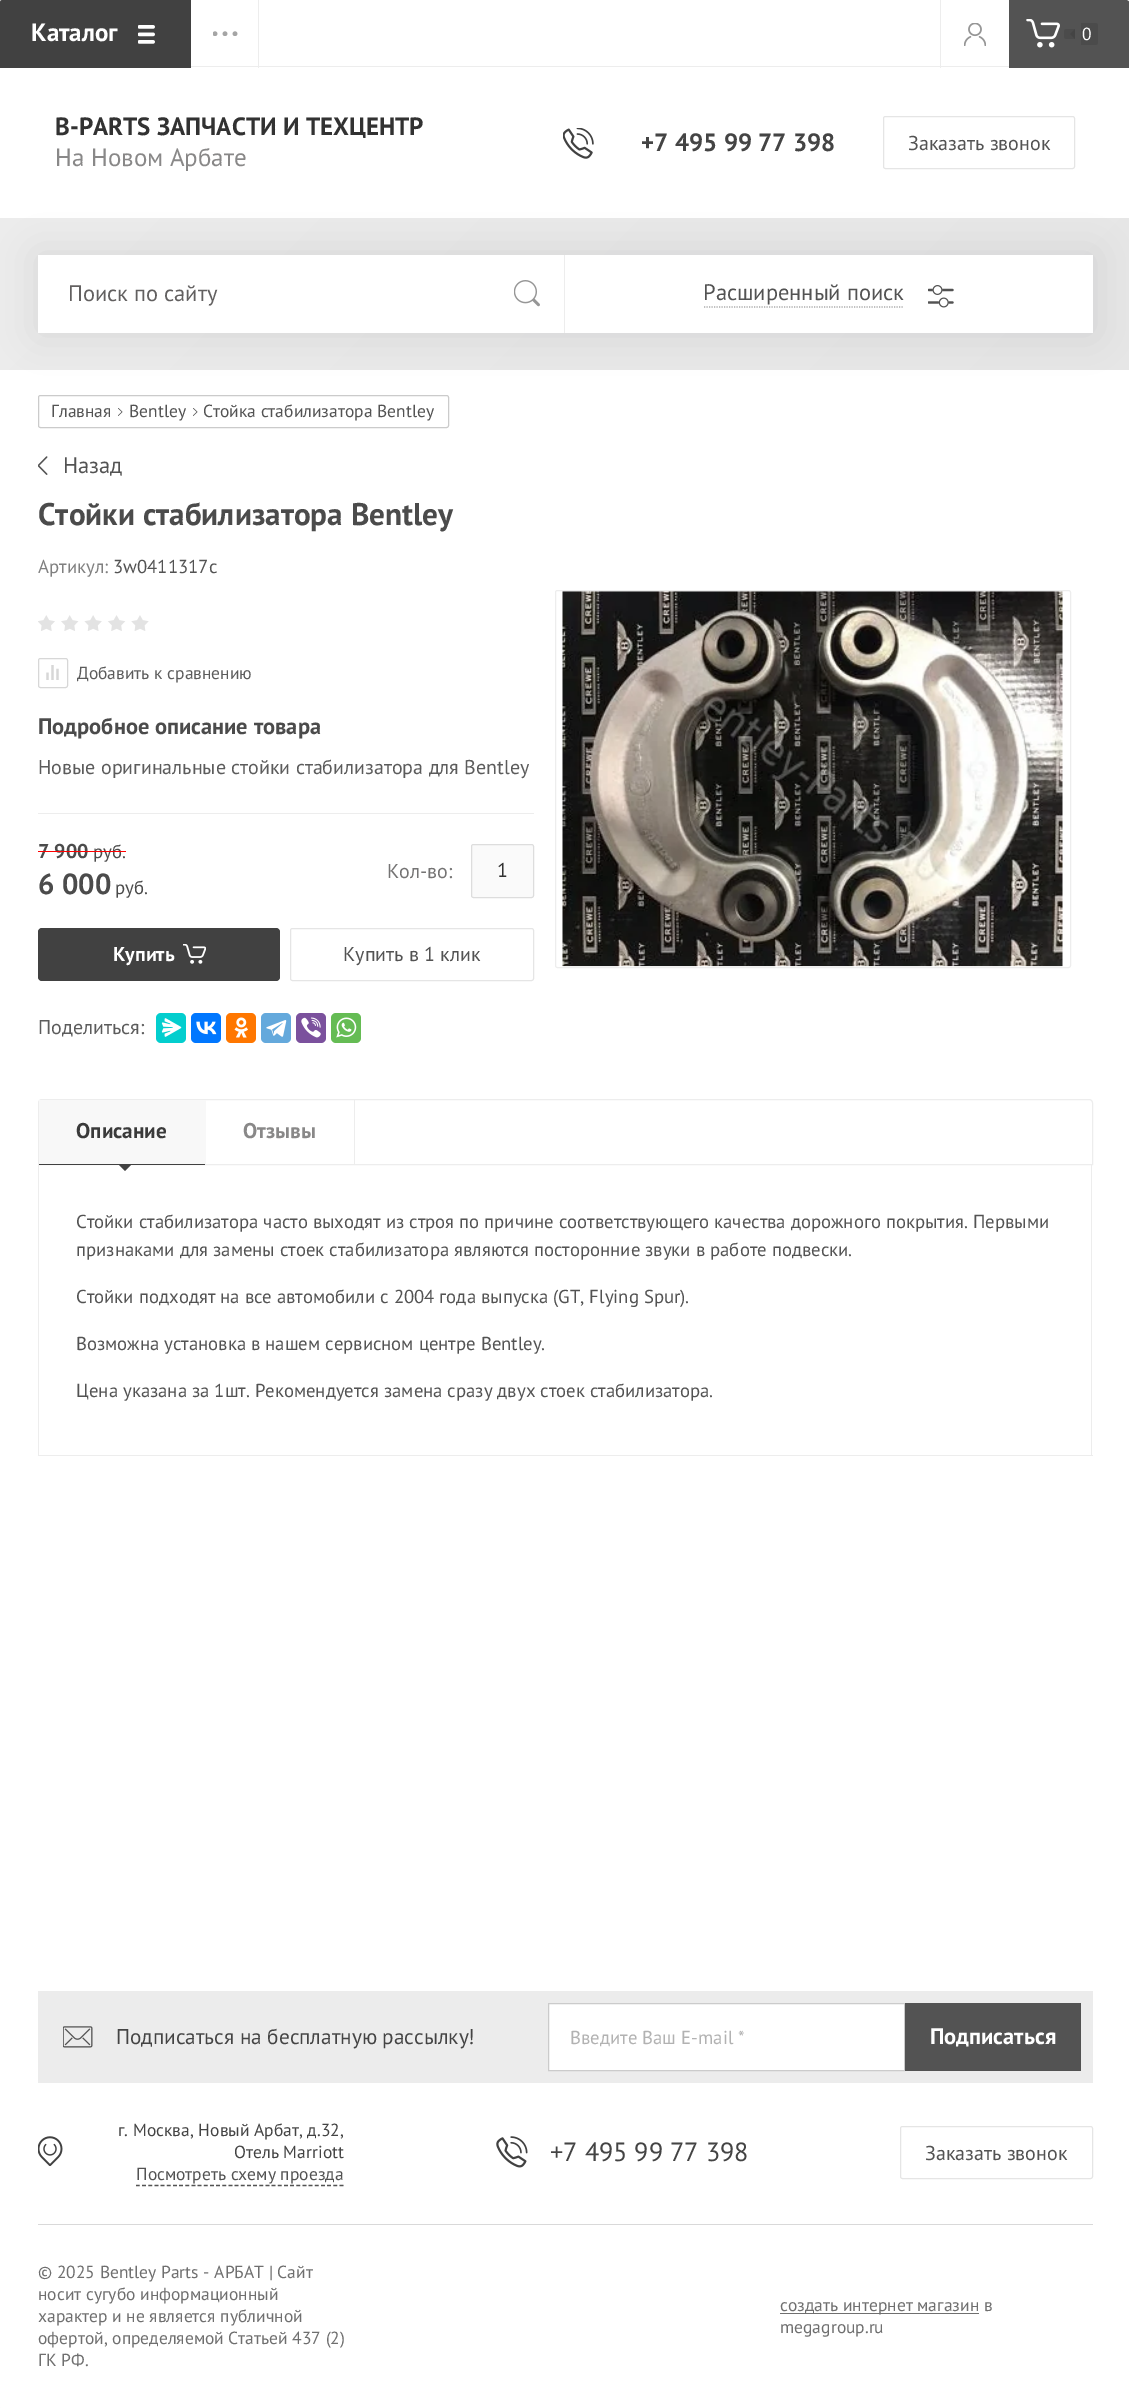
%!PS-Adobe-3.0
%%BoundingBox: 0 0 1129 2408
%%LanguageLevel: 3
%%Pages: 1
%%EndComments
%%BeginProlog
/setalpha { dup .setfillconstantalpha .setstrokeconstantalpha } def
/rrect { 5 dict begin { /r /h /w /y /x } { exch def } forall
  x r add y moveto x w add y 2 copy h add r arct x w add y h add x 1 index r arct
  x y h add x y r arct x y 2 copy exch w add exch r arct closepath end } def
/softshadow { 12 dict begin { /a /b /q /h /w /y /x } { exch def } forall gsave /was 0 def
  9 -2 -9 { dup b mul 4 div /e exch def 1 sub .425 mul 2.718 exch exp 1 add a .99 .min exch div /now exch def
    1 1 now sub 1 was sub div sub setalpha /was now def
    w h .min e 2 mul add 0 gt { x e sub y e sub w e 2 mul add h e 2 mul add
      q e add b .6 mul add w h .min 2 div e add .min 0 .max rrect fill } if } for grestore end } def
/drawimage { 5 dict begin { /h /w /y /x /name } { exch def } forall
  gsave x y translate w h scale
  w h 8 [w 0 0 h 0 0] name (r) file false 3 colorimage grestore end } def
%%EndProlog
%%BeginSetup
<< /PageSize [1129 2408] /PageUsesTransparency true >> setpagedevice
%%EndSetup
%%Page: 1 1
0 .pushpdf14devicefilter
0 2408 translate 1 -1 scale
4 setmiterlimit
1 setgray
0 0 1129 2408 rectfill
(images/1.raw) 0 2406 1 2 drawimage
0 0 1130 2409 2.5 rrect fill
0.255 setgray
newpath 2.5 0 moveto 191 0 lineto 191 68 lineto 0 68 lineto 0 2.5 lineto 0 1 1 0 2.5 0 curveto closepath fill
(images/2.raw) 138 25 17 19 drawimage
(images/3.raw) 213 31 25 5 drawimage
0.929 setgray
191 66 818 1 rectfill
258 0 1 68 rectfill
940 0 1 68 rectfill
(images/4.raw) 964 23 22 23 drawimage
0.325 setgray
newpath 1009 0 moveto 1126 0 lineto 1128 0 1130 2 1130 4 curveto 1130 68 lineto 1009 68 lineto closepath fill
(images/5.raw) 1026 19 34 29 drawimage
0.294 setgray
newpath 1066.5 29 moveto 1075 29 lineto 1075 39 lineto 1066.5 39 lineto 1065 39 1064 38 1064 36.5 curveto 1064 31.5 lineto 1064 30 1065 29 1066.5 29 curveto closepath fill
newpath 1081 23 moveto 1095.5 23 lineto 1097 23 1098 24 1098 25.5 curveto 1098 42.5 lineto 1098 44 1097 45 1095.5 45 curveto 1081 45 lineto closepath fill
0.267 setgray
newpath 1075 29 moveto 1075 39 lineto 1070 34 lineto closepath fill
(images/6.raw) 563 128 31 31 drawimage
0.898 setgray
883.5 116.5 191 52 2 rrect stroke
gsave newpath 0 218 moveto 1129 218 lineto 1129 370 lineto 0 370 lineto closepath clip newpath
<< /ShadingType 2 /ColorSpace /DeviceRGB /Coords [244 -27 886 614] /Extend [true true] /Function << /FunctionType 2 /Domain [0 1] /C0 [0.929 0.929 0.929] /C1 [0.902 0.902 0.902] /N 1 >> >> shfill grestore
0.31 0.345 0.384 setrgbcolor
38 255 1055 78 0 19 0.14 softshadow
1 setgray
38 255 1055 78 rectfill
0.929 setgray
564 255 1 78 rectfill
(images/7.raw) 514 280 26 27 drawimage
0.663 setgray
1.2 setlinewidth
[1.25 1.25] 0 setdash
newpath 704 307 moveto 904 307 lineto stroke
(images/8.raw) 928 285 26 23 drawimage
0.796 setgray
1 setlinewidth
[] 0 setdash
38.5 395.5 410 32 2 rrect stroke
(images/9.raw) 118 408 5 8 drawimage
(images/9.raw) 193 408 5 8 drawimage
(images/10.raw) 38 456 10 19 drawimage
(images/11.raw) 38 615 111 16 drawimage
(images/12.raw) 46 665 13 15 drawimage
0.843 setgray
38.5 658.5 29 29 2 rrect stroke
0.929 setgray
38 813 496 1 rectfill
0.98 setgray
471.5 844.5 62 53 2 rrect gsave fill grestore
0.867 setgray
stroke
0.255 setgray
38 928 242 53 4 rrect fill
(images/13.raw) 183 944 23 20 drawimage
0.898 setgray
290.5 928.5 243 52 2 rrect stroke
0.012 0.808 0.808 setrgbcolor
156 1013 30 30 5 rrect fill
(images/14.raw) 161 1018 21 19 drawimage
0 0.467 1 setrgbcolor
191 1013 30 30 5 rrect fill
(images/15.raw) 196 1021 21 14 drawimage
1 0.467 0 setrgbcolor
226 1013 30 30 5 rrect fill
(images/16.raw) 234 1017 14 21 drawimage
0.392 0.663 0.863 setrgbcolor
261 1013 30 30 5 rrect fill
(images/17.raw) 266 1020 21 17 drawimage
0.482 0.318 0.616 setrgbcolor
296 1013 30 30 5 rrect fill
(images/18.raw) 301 1017 20 21 drawimage
0.396 0.737 0.329 setrgbcolor
331 1013 30 30 5 rrect fill
(images/19.raw) 336 1017 21 21 drawimage
0.929 setgray
555.5 590.5 515 377 2 rrect stroke
(images/20.raw) 562 591 501 376 drawimage
newpath 42 1099.5 moveto 1089 1099.5 lineto 1091 1099.5 1092.5 1101 1092.5 1103 curveto 1092.5 1164.5 lineto 38.5 1164.5 lineto 38.5 1103 lineto 38.5 1101 40 1099.5 42 1099.5 curveto closepath stroke
0.255 setgray
39 1164 166 1 rectfill
0.973 setgray
39 1100 167 64 rectfill
0.255 setgray
newpath 119 1165 moveto 131 1165 lineto 125 1171 lineto closepath fill
0.929 setgray
354 1100 1 64 rectfill
1091 1165 1 291 rectfill
38 1455 1055 1 rectfill
38 1165 1 291 rectfill
0.925 setgray
38 1991 1055 92 rectfill
(images/21.raw) 63 2026 30 22 drawimage
1 setgray
newpath 548.5 2003.5 moveto 904.5 2003.5 lineto 904.5 2070.5 lineto 548.5 2070.5 lineto closepath gsave fill grestore
0.796 setgray
stroke
0.325 setgray
905 2003 176 68 rectfill
(images/22.raw) 38 2136 25 30 drawimage
1.2 setlinewidth
[3.75 2.42] 0 setdash
newpath 136 2185.5 moveto 344 2185.5 lineto stroke
(images/23.raw) 496 2136 32 32 drawimage
0.898 setgray
1 setlinewidth
[] 0 setdash
900.5 2126.5 192 52 2 rrect stroke
0.851 setgray
38 2224 1055 1 rectfill
0.435 setgray
780 2313 199 1 rectfill
/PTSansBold-Bold [25 0 0 -25 0 0] selectfont
1 setgray
31 41 moveto (Каталог) show
/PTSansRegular-Regular [17.5 0 0 -17.5 0 0] selectfont
1082 40 moveto (0) show
/PTSansBold-Bold [25 0 0 -25 0 0] selectfont
0.196 setgray
55 135 moveto (B-PARTS ЗАПЧАСТИ И ТЕХЦЕНТР) show
/PTSansRegular-Regular [25 0 0 -25 0 0] selectfont
0.537 0.533 0.533 setrgbcolor
55 166 moveto (На Новом Арбате) show
/PTSansBold-Bold [25 0 0 -25 0 0] selectfont
0.267 setgray
641 151 moveto (+7 495 99 77 398) show
/PTSansRegular-Regular [20 0 0 -20 0 0] selectfont
0.325 setgray
908 150 moveto (Заказать звонок) show
/PTSansRegular-Regular [22.5 0 0 -22.5 0 0] selectfont
0.384 0.376 0.376 setrgbcolor
68 301 moveto (Поиск по сайту) show
0.325 setgray
703 300 moveto (Расширенный поиск) show
/PTSansRegular-Regular [17.5 0 0 -17.5 0 0] selectfont
51 417 moveto (Главная) show
129 417 moveto (Bentley) show
203 417 moveto (Стойка стабилизатора Bentley) show
/PTSansRegular-Regular [22.5 0 0 -22.5 0 0] selectfont
63 473 moveto (Назад) show
/PTSansBold-Bold [31.25 0 0 -31.25 0 0] selectfont
0.294 setgray
38 525 moveto (Стойки стабилизатора Bentley) show
/PTSansRegular-Regular [18.75 0 0 -18.75 0 0] selectfont
0.502 setgray
38 573 moveto (Артикул:) show
0.325 setgray
113 573 moveto (3w0411317c) show
/PTSansRegular-Regular [17.5 0 0 -17.5 0 0] selectfont
0.361 setgray
77 679 moveto (Добавить к сравнению) show
/PTSansBold-Bold [22.5 0 0 -22.5 0 0] selectfont
0.294 setgray
38 734 moveto (Подробное описание товара) show
/PTSansRegular-Regular [20 0 0 -20 0 0] selectfont
0.361 setgray
38 774 moveto (Новые оригинальные стойки стабилизатора для Bentley) show
/PTSansBold-Bold [20 0 0 -20 0 0] selectfont
0.294 setgray
38 858 moveto (7 900) show
/PTSansRegular-Regular [18.75 0 0 -18.75 0 0] selectfont
93 858 moveto (руб.) show
1 0 0 setrgbcolor
38 851 88 1 rectfill
/PTSansBold-Bold [29 0 0 -29 0 0] selectfont
0.294 setgray
38 894 moveto (6 000) show
/PTSansRegular-Regular [18.75 0 0 -18.75 0 0] selectfont
115 894 moveto (руб.) show
/PTSansRegular-Regular [20 0 0 -20 0 0] selectfont
0.459 0.455 0.455 setrgbcolor
387 878 moveto (Кол-во:) show
0.196 setgray
497 877 moveto (1) show
/PTSansBold-Bold [20 0 0 -20 0 0] selectfont
1 setgray
113 961 moveto (Купить) show
/PTSansRegular-Regular [20 0 0 -20 0 0] selectfont
0.325 setgray
343 961 moveto (Купить в 1 клик) show
0.361 setgray
38 1034 moveto (Поделиться:) show
/PTSansBold-Bold [21.25 0 0 -21.25 0 0] selectfont
0.227 setgray
76 1138 moveto (Описание) show
0.537 0.533 0.533 setrgbcolor
243 1138 moveto (Отзывы) show
/PTSansRegular-Regular [18.75 0 0 -18.75 0 0] selectfont
0.325 setgray
76 1228 moveto (Стойки стабилизатора часто выходят из строя по причине соответствующего качества дорожного покрытия. Первыми) show
76 1256 moveto (признаками для замены стоек стабилизатора являются посторонние звуки в работе подвески.) show
76 1303 moveto (Стойки подходят на все автомобили с 2004 года выпуска \(GT, Flying Spur\).) show
76 1350 moveto (Возможна установка в нашем сервисном центре Bentley.) show
76 1397 moveto (Цена указана за 1шт. Рекомендуется замена сразу двух стоек стабилизатора.) show
/PTSansRegular-Regular [21.25 0 0 -21.25 0 0] selectfont
0.267 setgray
116 2044 moveto (Подписаться на бесплатную рассылку!) show
/PTSansRegular-Regular [18.75 0 0 -18.75 0 0] selectfont
0.698 setgray
570 2044 moveto (Введите Ваш E-mail *) show
/PTSansBold-Bold [22.5 0 0 -22.5 0 0] selectfont
1 setgray
930 2044 moveto (Подписаться) show
/PTSansRegular-Regular [17.5 0 0 -17.5 0 0] selectfont
0.267 setgray
118 2136 moveto (г. Москва, Новый Арбат, д.32,) show
234 2158 moveto (Отель Marriott) show
0.325 setgray
136 2180 moveto (Посмотреть схему проезда) show
/PTSansRegular-Regular [26.25 0 0 -26.25 0 0] selectfont
0.267 setgray
550 2161 moveto (+7 495 99 77 398) show
/PTSansRegular-Regular [20 0 0 -20 0 0] selectfont
0.325 setgray
925 2160 moveto (Заказать звонок) show
/PTSansRegular-Regular [17.5 0 0 -17.5 0 0] selectfont
0.435 setgray
38 2278 moveto (© 2025 Bentley Parts - АРБАТ | Сайт) show
38 2300 moveto (носит сугубо информационный) show
38 2322 moveto (характер и не является публичной) show
38 2344 moveto (офертой, определяемой Статьей 437 \(2\)) show
38 2366 moveto (ГК РФ.) show
780 2311 moveto (создать интернет магазин в) show
780 2333 moveto (megagroup.ru) show
.poppdf14devicefilter showpage
%%EOF
